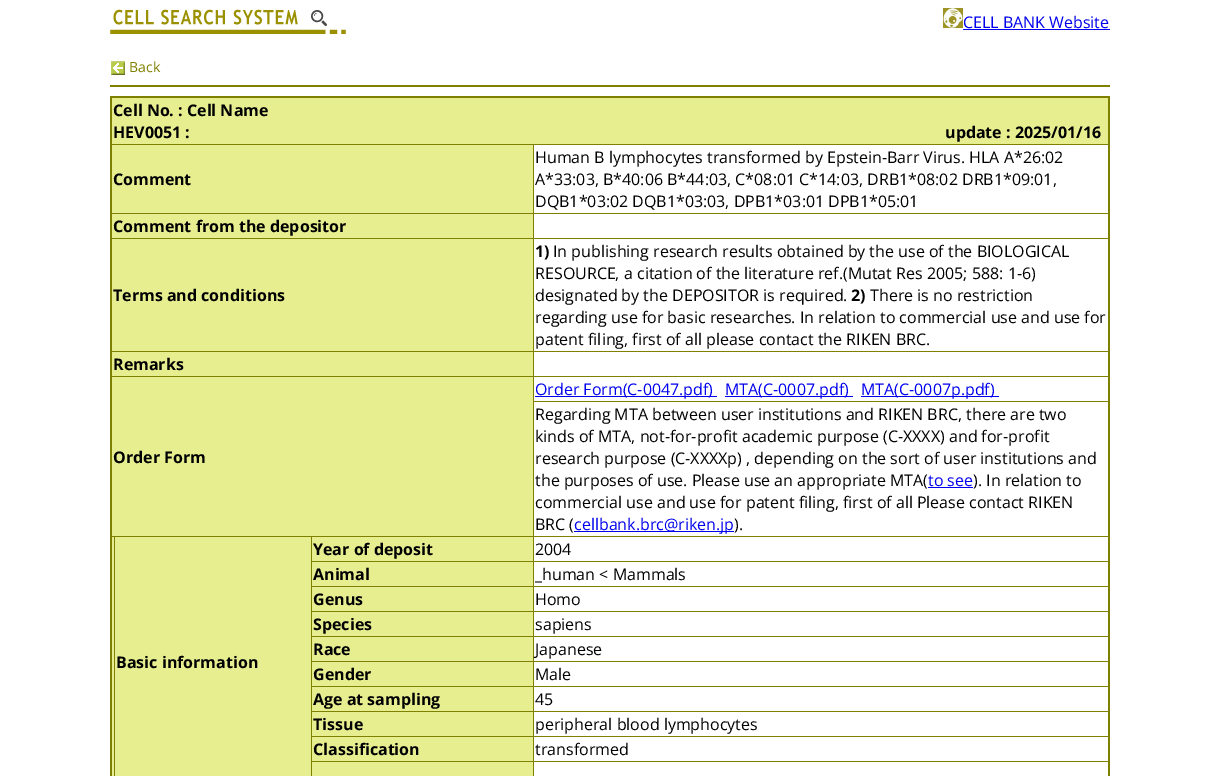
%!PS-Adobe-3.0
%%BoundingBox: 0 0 1219 776
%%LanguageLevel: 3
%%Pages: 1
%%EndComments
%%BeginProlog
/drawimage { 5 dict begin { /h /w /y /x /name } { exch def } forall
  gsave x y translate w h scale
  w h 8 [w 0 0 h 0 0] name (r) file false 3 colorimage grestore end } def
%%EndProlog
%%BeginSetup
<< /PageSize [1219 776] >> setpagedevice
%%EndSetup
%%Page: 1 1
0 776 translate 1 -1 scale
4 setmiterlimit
1 setgray
0 0 1219 776 rectfill
(images/1.raw) 110 9 236 25 drawimage
(images/2.raw) 943 8 20 20 drawimage
0 0 0.933 setrgbcolor
963 29 147 1 rectfill
(images/3.raw) 111 61 14 14 drawimage
0.502 0.502 0 setrgbcolor
110 85 1000 2 rectfill
110 96 1000 2 rectfill
533 144 576 1 rectfill
533 213 576 1 rectfill
533 238 576 1 rectfill
533 351 576 1 rectfill
533 376 576 1 rectfill
533 401 576 1 rectfill
533 536 576 1 rectfill
533 561 576 1 rectfill
533 586 576 1 rectfill
533 611 576 1 rectfill
533 636 576 1 rectfill
533 661 576 1 rectfill
533 686 576 1 rectfill
533 711 576 1 rectfill
533 736 576 1 rectfill
533 761 576 1 rectfill
1108 96 2 680 rectfill
533 761 1 15 rectfill
311 761 223 1 rectfill
533 736 1 26 rectfill
311 736 223 1 rectfill
533 711 1 26 rectfill
311 711 223 1 rectfill
533 686 1 26 rectfill
311 686 223 1 rectfill
533 661 1 26 rectfill
311 661 223 1 rectfill
533 636 1 26 rectfill
311 636 223 1 rectfill
533 611 1 26 rectfill
311 611 223 1 rectfill
533 586 1 26 rectfill
311 586 223 1 rectfill
533 561 1 26 rectfill
311 561 223 1 rectfill
533 536 1 26 rectfill
311 536 223 1 rectfill
533 401 1 136 rectfill
533 376 1 26 rectfill
110 376 424 1 rectfill
533 351 1 26 rectfill
110 351 424 1 rectfill
533 238 1 114 rectfill
110 238 424 1 rectfill
533 213 1 26 rectfill
110 213 424 1 rectfill
533 144 1 70 rectfill
110 144 424 1 rectfill
311 761 1 15 rectfill
311 736 1 26 rectfill
311 711 1 26 rectfill
311 686 1 26 rectfill
311 661 1 26 rectfill
311 636 1 26 rectfill
311 611 1 26 rectfill
311 586 1 26 rectfill
311 561 1 26 rectfill
311 536 1 26 rectfill
114 536 198 1 rectfill
114 536 1 240 rectfill
110 536 5 1 rectfill
110 96 2 680 rectfill
0.902 0.933 0.565 setrgbcolor
112 98 996 46 rectfill
112 145 421 68 rectfill
112 214 421 24 rectfill
112 239 421 112 rectfill
112 352 421 24 rectfill
0 0 0.933 setrgbcolor
535 396 182 1 rectfill
725 396 128 1 rectfill
861 396 138 1 rectfill
0.902 0.933 0.565 setrgbcolor
112 377 421 159 rectfill
0 0 0.933 setrgbcolor
928 487 45 1 rectfill
574 531 160 1 rectfill
0.902 0.933 0.565 setrgbcolor
112 537 2 239 rectfill
312 537 221 24 rectfill
115 537 196 239 rectfill
312 562 221 24 rectfill
312 587 221 24 rectfill
312 612 221 24 rectfill
312 637 221 24 rectfill
312 662 221 24 rectfill
312 687 221 24 rectfill
312 712 221 24 rectfill
312 737 221 24 rectfill
312 762 221 14 rectfill
/OpenSans-Regular [16 0 0 -16 0 0] selectfont
0 0 0.933 setrgbcolor
963 28 moveto (CELL BANK Website) show
/OpenSans-Regular [14 0 0 -14 0 0] selectfont
0.502 0.502 0 setrgbcolor
129 72 moveto (Back) show
/OpenSans-Bold [16 0 0 -16 0 0] selectfont
0 setgray
113 116 moveto (Cell No. : Cell Name) show
113 138 moveto (HEV0051 :) show
945 138 moveto (update : 2025/01/16) show
113 185 moveto (Comment) show
/OpenSans-Regular [16 0 0 -16 0 0] selectfont
535 163 moveto (Human B lymphocytes transformed by Epstein-Barr Virus. HLA A*26:02) show
535 185 moveto (A*33:03, B*40:06 B*44:03, C*08:01 C*14:03, DRB1*08:02 DRB1*09:01,) show
535 207 moveto (DQB1*03:02 DQB1*03:03, DPB1*03:01 DPB1*05:01) show
/OpenSans-Bold [16 0 0 -16 0 0] selectfont
113 232 moveto (Comment from the depositor) show
113 301 moveto (Terms and conditions) show
535 257 moveto (1\)) show
/OpenSans-Regular [16 0 0 -16 0 0] selectfont
553 257 moveto (In publishing research results obtained by the use of the BIOLOGICAL) show
535 279 moveto (RESOURCE, a citation of the literature ref.\(Mutat Res 2005; 588: 1-6\)) show
535 301 moveto (designated by the DEPOSITOR is required.) show
/OpenSans-Bold [16 0 0 -16 0 0] selectfont
851 301 moveto (2\)) show
/OpenSans-Regular [16 0 0 -16 0 0] selectfont
870 301 moveto (There is no restriction) show
535 323 moveto (regarding use for basic researches. In relation to commercial use and use for) show
535 345 moveto (patent filing, first of all please contact the RIKEN BRC.) show
/OpenSans-Bold [16 0 0 -16 0 0] selectfont
113 370 moveto (Remarks) show
/OpenSans-Regular [16 0 0 -16 0 0] selectfont
0 0 0.933 setrgbcolor
535 395 moveto (Order Form\(C-0047.pdf\)) show
725 395 moveto (MTA\(C-0007.pdf\)) show
861 395 moveto (MTA\(C-0007p.pdf\)) show
/OpenSans-Bold [16 0 0 -16 0 0] selectfont
0 setgray
113 463 moveto (Order Form) show
/OpenSans-Regular [16 0 0 -16 0 0] selectfont
535 420 moveto (Regarding MTA between user institutions and RIKEN BRC, there are two) show
535 442 moveto (kinds of MTA, not-for-profit academic purpose \(C-XXXX\) and for-profit) show
535 464 moveto (research purpose \(C-XXXXp\) , depending on the sort of user institutions and) show
535 486 moveto (the purposes of use. Please use an appropriate MTA\() show
0 0 0.933 setrgbcolor
928 486 moveto (to see) show
0 setgray
973 486 moveto (\). In relation to) show
535 508 moveto (commercial use and use for patent filing, first of all Please contact RIKEN) show
535 530 moveto (BRC \() show
0 0 0.933 setrgbcolor
574 530 moveto (cellbank.brc@riken.jp) show
0 setgray
734 530 moveto (\).) show
/OpenSans-Bold [16 0 0 -16 0 0] selectfont
313 555 moveto (Year of deposit) show
/OpenSans-Regular [16 0 0 -16 0 0] selectfont
535 555 moveto (2004) show
/OpenSans-Bold [16 0 0 -16 0 0] selectfont
116 668 moveto (Basic information) show
313 580 moveto (Animal) show
/OpenSans-Regular [16 0 0 -16 0 0] selectfont
535 580 moveto (_human < Mammals) show
/OpenSans-Bold [16 0 0 -16 0 0] selectfont
313 605 moveto (Genus) show
/OpenSans-Regular [16 0 0 -16 0 0] selectfont
535 605 moveto (Homo) show
/OpenSans-Bold [16 0 0 -16 0 0] selectfont
313 630 moveto (Species) show
/OpenSans-Regular [16 0 0 -16 0 0] selectfont
535 630 moveto (sapiens) show
/OpenSans-Bold [16 0 0 -16 0 0] selectfont
313 655 moveto (Race) show
/OpenSans-Regular [16 0 0 -16 0 0] selectfont
535 655 moveto (Japanese) show
/OpenSans-Bold [16 0 0 -16 0 0] selectfont
313 680 moveto (Gender) show
/OpenSans-Regular [16 0 0 -16 0 0] selectfont
535 680 moveto (Male) show
/OpenSans-Bold [16 0 0 -16 0 0] selectfont
313 705 moveto (Age at sampling) show
/OpenSans-Regular [16 0 0 -16 0 0] selectfont
535 705 moveto (45) show
/OpenSans-Bold [16 0 0 -16 0 0] selectfont
313 730 moveto (Tissue) show
/OpenSans-Regular [16 0 0 -16 0 0] selectfont
535 730 moveto (peripheral blood lymphocytes) show
/OpenSans-Bold [16 0 0 -16 0 0] selectfont
313 755 moveto (Classification) show
/OpenSans-Regular [16 0 0 -16 0 0] selectfont
535 755 moveto (transformed) show
showpage
%%EOF
